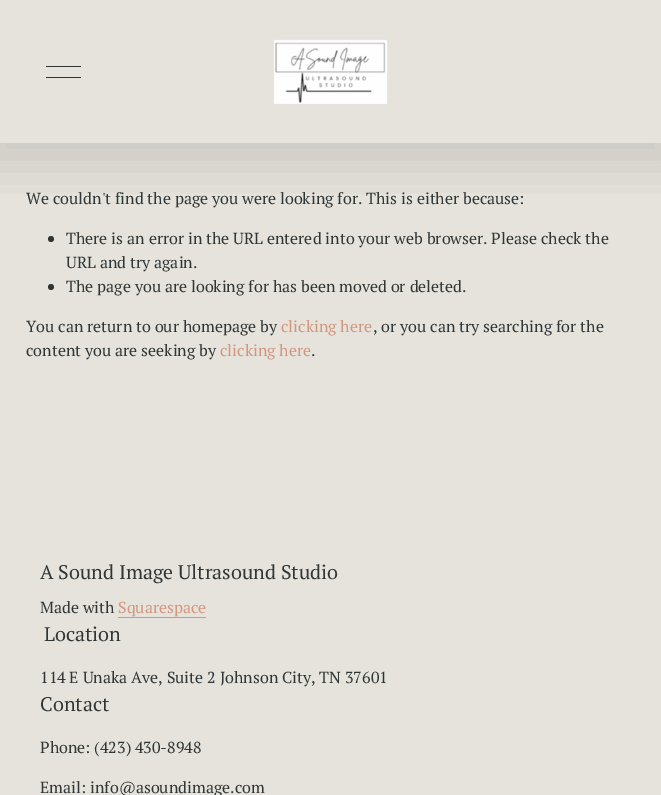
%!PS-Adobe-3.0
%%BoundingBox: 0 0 661 795
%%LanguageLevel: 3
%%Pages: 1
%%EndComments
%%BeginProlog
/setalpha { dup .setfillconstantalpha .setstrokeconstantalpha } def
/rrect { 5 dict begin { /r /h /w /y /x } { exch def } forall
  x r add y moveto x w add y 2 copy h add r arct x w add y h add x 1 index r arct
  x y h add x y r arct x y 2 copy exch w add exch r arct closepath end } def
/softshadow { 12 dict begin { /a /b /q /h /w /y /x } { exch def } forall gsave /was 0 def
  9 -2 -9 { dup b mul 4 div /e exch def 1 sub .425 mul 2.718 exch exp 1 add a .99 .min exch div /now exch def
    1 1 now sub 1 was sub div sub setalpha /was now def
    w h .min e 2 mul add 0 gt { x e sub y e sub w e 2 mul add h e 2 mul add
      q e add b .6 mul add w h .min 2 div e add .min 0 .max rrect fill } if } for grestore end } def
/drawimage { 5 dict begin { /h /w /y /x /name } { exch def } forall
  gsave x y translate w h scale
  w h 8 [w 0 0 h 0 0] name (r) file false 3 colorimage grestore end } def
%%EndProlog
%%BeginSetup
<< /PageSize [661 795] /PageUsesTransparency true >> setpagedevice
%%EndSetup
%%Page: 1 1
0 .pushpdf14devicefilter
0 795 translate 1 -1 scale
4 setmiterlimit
0.898 0.89 0.863 setrgbcolor
0 0 661 795 rectfill
0.188 0.212 0.212 setrgbcolor
newpath 51 239 3 0 360 arc closepath fill
gsave
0 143 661 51 rectclip
-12 0 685 167 0 24 0.15 softshadow
grestore
46 66 35 1 rectfill
46 77 35 1 rectfill
(images/1.raw) 273 39 115 65 drawimage
newpath 51 287 3 0 360 arc closepath fill
0.831 0.588 0.49 setrgbcolor
118 617 88 1 rectfill
/PTSerif-Regular [16 0 0 -16 0 0] selectfont
0.188 0.212 0.212 setrgbcolor
26 204 moveto (We couldn't find the page you were looking for. This is either because:) show
66 244 moveto (There is an error in the URL entered into your web browser. Please check the) show
66 268 moveto (URL and try again.) show
66 292 moveto (The page you are looking for has been moved or deleted.) show
26 332 moveto (You can return to our homepage by) show
0.831 0.588 0.49 setrgbcolor
281 332 moveto (clicking here) show
0.188 0.212 0.212 setrgbcolor
373 332 moveto (, or you can try searching for the) show
26 356 moveto (content you are seeking by) show
0.831 0.588 0.49 setrgbcolor
220 356 moveto (clicking here) show
0.188 0.212 0.212 setrgbcolor
311 356 moveto (.) show
/PTSerif-Regular [19.8 0 0 -19.8 0 0] selectfont
40 579 moveto (A Sound Image Ultrasound Studio) show
/PTSerif-Regular [16 0 0 -16 0 0] selectfont
40 613 moveto (Made with) show
0.831 0.588 0.49 setrgbcolor
118 613 moveto (Squarespace) show
/PTSerif-Regular [19.8 0 0 -19.8 0 0] selectfont
0.188 0.212 0.212 setrgbcolor
44 641 moveto (Location) show
/PTSerif-Regular [16 0 0 -16 0 0] selectfont
40 683 moveto (114 E Unaka Ave, Suite 2 Johnson City, TN 37601) show
/PTSerif-Regular [19.8 0 0 -19.8 0 0] selectfont
40 711 moveto (Contact) show
/PTSerif-Regular [16 0 0 -16 0 0] selectfont
40 753 moveto (Phone: \(423\) 430-8948) show
40 793 moveto (Email: info@asoundimage.com) show
.poppdf14devicefilter showpage
%%EOF
